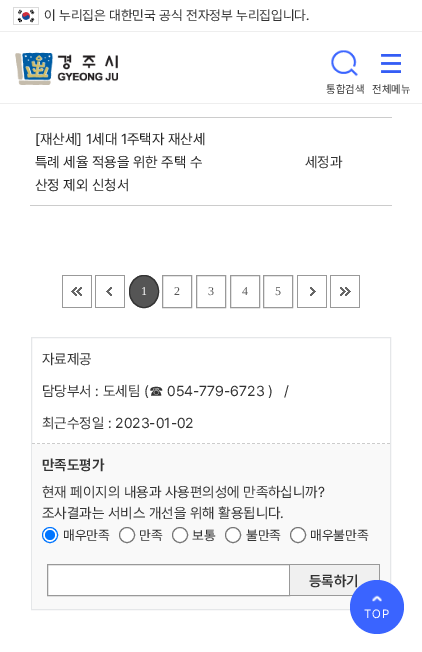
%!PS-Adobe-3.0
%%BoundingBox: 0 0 422 652
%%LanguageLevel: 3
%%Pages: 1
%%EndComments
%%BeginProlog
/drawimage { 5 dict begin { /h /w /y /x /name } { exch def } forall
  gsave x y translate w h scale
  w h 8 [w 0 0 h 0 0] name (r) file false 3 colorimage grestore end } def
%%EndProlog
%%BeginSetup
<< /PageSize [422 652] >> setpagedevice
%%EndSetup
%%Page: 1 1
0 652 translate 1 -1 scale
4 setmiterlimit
1 setgray
0 0 422 652 rectfill
0.933 setgray
0 103 422 1 rectfill
0 31 422 1 rectfill
(images/1.raw) 13 7 26 18 drawimage
(images/2.raw) 15 52 103 33 drawimage
(images/3.raw) 331 50 27 27 drawimage
(images/4.raw) 381 54 20 19 drawimage
0.8 setgray
30 117 362 1 rectfill
30 205 362 1 rectfill
(images/5.raw) 62 275 30 33 drawimage
(images/6.raw) 95 275 30 33 drawimage
0.333 setgray
newpath 144 275 moveto 152.5 275 159 282.5 159 291.5 curveto 159 300.5 152.5 308 144 308 curveto 135.5 308 129 300.5 129 291.5 curveto 129 282.5 135.5 275 144 275 curveto closepath fill
0.2 setgray
newpath 144 275.5 moveto 152 275.5 158.5 282.5 158.5 291.5 curveto 158.5 300.5 152 307.5 144 307.5 curveto 136 307.5 129.5 300.5 129.5 291.5 curveto 129.5 282.5 136 275.5 144 275.5 curveto closepath stroke
0.6 setgray
162.5 275.5 29 32 rectstroke
196.5 275.5 29 32 rectstroke
230.5 275.5 29 32 rectstroke
263.5 275.5 29 32 rectstroke
(images/7.raw) 297 275 30 33 drawimage
(images/8.raw) 330 275 30 33 drawimage
0.898 0.906 0.914 setrgbcolor
31.5 337.5 359 272 rectstroke
0.8 setgray
[3 2] 0 setdash
newpath 32 443.5 moveto 390 443.5 lineto stroke
0.976 setgray
32 444 358 165 rectfill
1 setgray
newpath 50 535 7.5 0 360 arc closepath gsave fill grestore
0 0.459 1 setrgbcolor
[] 0 setdash
stroke
newpath 50 535 5 0 360 arc closepath fill
1 setgray
newpath 127 535 7.5 0 360 arc closepath gsave fill grestore
0.463 setgray
stroke
1 setgray
newpath 180 535 7.5 0 360 arc closepath gsave fill grestore
0.463 setgray
stroke
1 setgray
newpath 233 535 7.5 0 360 arc closepath gsave fill grestore
0.463 setgray
stroke
1 setgray
newpath 298 535 7.5 0 360 arc closepath gsave fill grestore
0.463 setgray
stroke
1 setgray
newpath 47.5 564.5 moveto 289.5 564.5 lineto 289.5 595.5 lineto 47.5 595.5 lineto closepath gsave fill grestore
0.6 setgray
stroke
0.941 setgray
290 565 89 30 rectfill
0.6 setgray
290 564 90 1 rectfill
379 564 1 17 rectfill
290 595 63 1 rectfill
/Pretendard-Regular [13.5 0 0 -13.5 0 0] selectfont
0.2 setgray
44 20 moveto (이 누리집은 대한민국 공식 전자정부 누리집입니다.) show
/Pretendard-Regular [11 0 0 -11 0 0] selectfont
326 93 moveto (통합검색) show
372 93 moveto (전체메뉴) show
/Pretendard-Regular [14.4 0 0 -14.4 0 0] selectfont
0.133 setgray
35 144 moveto ([재산세] 1세대 1주택자 재산세) show
35 167 moveto (특례 세율 적용을 위한 주택 수) show
35 190 moveto (산정 제외 신청서) show
0.2 setgray
305 167 moveto (세정과) show
/LiberationSerif-Regular [12 0 0 -12 0 0] selectfont
1 setgray
141 295 moveto (1) show
0.333 setgray
174 295 moveto (2) show
208 295 moveto (3) show
242 295 moveto (4) show
275 295 moveto (5) show
/Pretendard-Regular [14.4 0 0 -14.4 0 0] selectfont
0.2 setgray
42 364 moveto (자료제공) show
42 396 moveto (담당부서 : 도세팀 \() show
/WenQuanYiZenHei-Medium [14.4 0 0 -14.4 0 0] selectfont
149 396 moveto (☎) show
/Pretendard-Regular [14.4 0 0 -14.4 0 0] selectfont
167 396 moveto (054-779-6723 \)) show
284 396 moveto (/) show
42 428 moveto (최근수정일 : 2023-01-02) show
/Pretendard-SemiBold [14.4 0 0 -14.4 0 0] selectfont
42 470 moveto (만족도평가) show
/Pretendard-Regular [14.4 0 0 -14.4 0 0] selectfont
42 497 moveto (현재 페이지의 내용과 사용편의성에 만족하십니까?) show
42 518 moveto (조사결과는 서비스 개선을 위해 활용됩니다.) show
/Pretendard-Regular [13.5 0 0 -13.5 0 0] selectfont
63 540 moveto (매우만족) show
139 540 moveto (만족) show
192 540 moveto (보통) show
246 540 moveto (불만족) show
310 540 moveto (매우불만족) show
/Pretendard-SemiBold [14.4 0 0 -14.4 0 0] selectfont
309 586 moveto (등록하기) show
0.227 0.392 1 setrgbcolor
newpath 377 607 27 0 360 arc closepath fill
(images/9.raw) 372 595 10 7 drawimage
/Pretendard-Regular [12 0 0 -12 0 0] selectfont
1 setgray
364 618 moveto 1 0 (TOP) ashow
showpage
%%EOF
